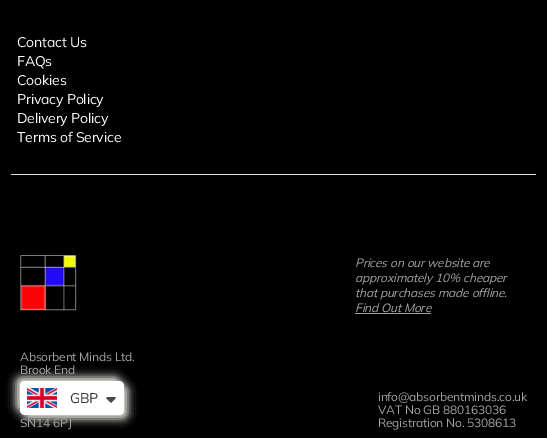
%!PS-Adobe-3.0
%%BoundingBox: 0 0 547 438
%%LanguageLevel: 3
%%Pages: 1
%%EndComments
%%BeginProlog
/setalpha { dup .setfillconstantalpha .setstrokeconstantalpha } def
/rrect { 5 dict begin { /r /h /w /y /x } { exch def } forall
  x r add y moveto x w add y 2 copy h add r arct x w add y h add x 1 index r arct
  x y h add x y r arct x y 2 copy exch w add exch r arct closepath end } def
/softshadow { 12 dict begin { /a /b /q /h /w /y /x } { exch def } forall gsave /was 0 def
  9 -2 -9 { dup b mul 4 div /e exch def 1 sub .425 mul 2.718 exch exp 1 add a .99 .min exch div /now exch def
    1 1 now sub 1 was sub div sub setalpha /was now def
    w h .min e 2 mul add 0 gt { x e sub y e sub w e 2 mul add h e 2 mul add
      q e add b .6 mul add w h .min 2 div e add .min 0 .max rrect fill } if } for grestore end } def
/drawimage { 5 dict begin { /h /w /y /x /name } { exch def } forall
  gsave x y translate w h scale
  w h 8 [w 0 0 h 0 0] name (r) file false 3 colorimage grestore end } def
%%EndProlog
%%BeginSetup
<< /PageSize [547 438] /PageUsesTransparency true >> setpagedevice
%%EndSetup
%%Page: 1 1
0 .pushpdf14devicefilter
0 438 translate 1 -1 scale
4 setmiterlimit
0 setgray
0 0 547 438 rectfill
0.867 setgray
11 174 525 1 rectfill
(images/1.raw) 20 255 64 56 drawimage
0.639 setgray
355 313 76 1 rectfill
0.91 0.91 0.886 setrgbcolor
16 377 104 34 5 4.5 1 softshadow
24 385 104 34 5 4.5 1 softshadow
1 setgray
20 381 104 34 5 rrect fill
(images/2.raw) 27 388 30 20 drawimage
0.278 0.286 0.259 setrgbcolor
newpath 108 397 moveto 107 397 106.5 397.5 106 398 curveto 111 403 lineto 116 398 lineto 115 397 lineto closepath fill
/Mulish-Regular [14 0 0 -14 0 0] selectfont
1 setgray
17 47 moveto -0.2 0 (Contact Us) ashow
17 66 moveto -0.2 0 (FAQs) ashow
17 85 moveto -0.2 0 (Cookies) ashow
17 104 moveto -0.2 0 (Privacy Policy) ashow
17 123 moveto -0.2 0 (Delivery Policy) ashow
17 142 moveto -0.2 0 (Terms of Service) ashow
/Mulish-Italic [12 0 0 -12 0 0] selectfont
0.639 setgray
355 267 moveto -0.2 0 (Prices on our website are) ashow
355 282 moveto -0.2 0 (approximately 10% cheaper) ashow
355 297 moveto -0.2 0 (that purchases made offline.) ashow
355 312 moveto -0.2 0 (Find Out More) ashow
/Mulish-Regular [12 0 0 -12 0 0] selectfont
20 361 moveto -0.2 0 (Absorbent Minds Ltd.) ashow
20 374 moveto -0.2 0 (Brook End) ashow
20 427 moveto -0.2 0 (SN14 6PJ) ashow
378 401 moveto -0.2 0 (info@absorbentminds.co.uk) ashow
378 414 moveto -0.2 0 (VAT No GB 880163036) ashow
378 427 moveto -0.2 0 (Registration No. 5308613) ashow
/Mulish-Regular [14 0 0 -14 0 0] selectfont
0.2 setgray
70 403 moveto -0.2 0 (GBP) ashow
.poppdf14devicefilter showpage
%%EOF
